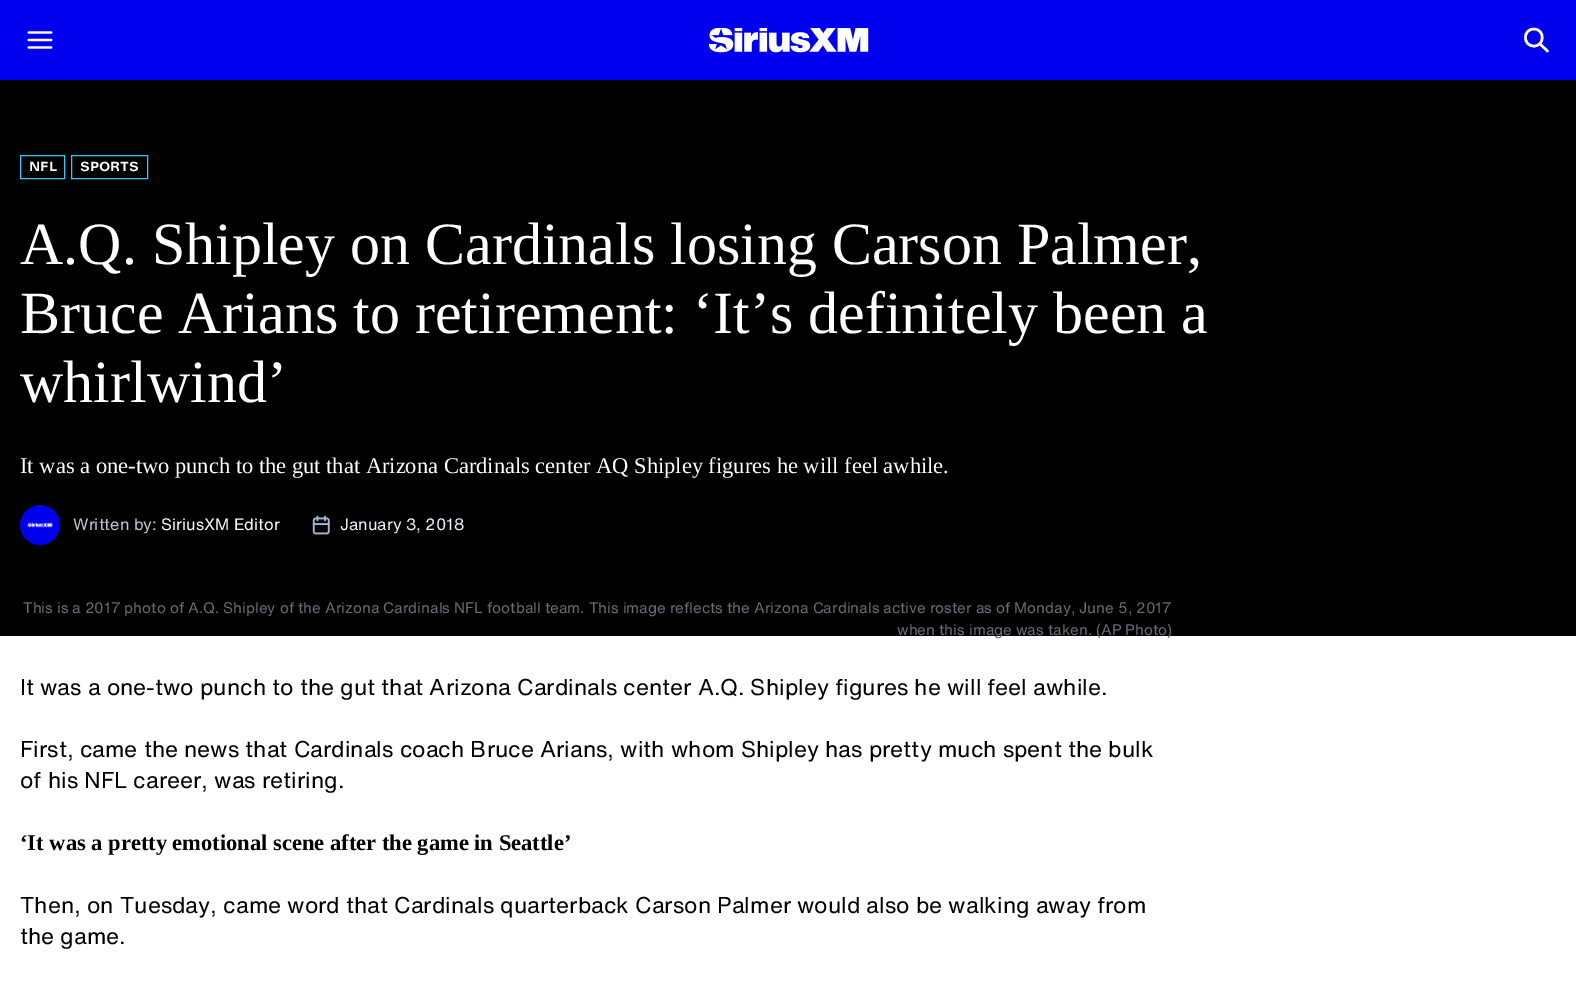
%!PS-Adobe-3.0
%%BoundingBox: 0 0 1576 986
%%LanguageLevel: 3
%%Pages: 1
%%EndComments
%%BeginProlog
/drawimage { 5 dict begin { /h /w /y /x /name } { exch def } forall
  gsave x y translate w h scale
  w h 8 [w 0 0 h 0 0] name (r) file false 3 colorimage grestore end } def
%%EndProlog
%%BeginSetup
<< /PageSize [1576 986] >> setpagedevice
%%EndSetup
%%Page: 1 1
0 986 translate 1 -1 scale
4 setmiterlimit
1 setgray
0 0 1576 986 rectfill
0 0 0.937 setrgbcolor
0 0 1576 80 rectfill
(images/1.raw) 27 31 26 18 drawimage
(images/2.raw) 709 28 160 25 drawimage
1 setgray
2.5 setlinewidth
1 setlinecap
1 setlinejoin
newpath 1534 46 moveto 1545 46 1545 29 1534 29 curveto 1522.5 29 1522.5 46 1534 46 curveto closepath 1547.5 51 moveto 1540 44 lineto stroke
0 setgray
0 80 1576 556 rectfill
0.192 0.784 1 setrgbcolor
1 setlinewidth
0 setlinecap
0 setlinejoin
20.5 155.5 44 23 rectstroke
71.5 155.5 76 23 rectstroke
(images/3.raw) 20 505 40 40 drawimage
(images/4.raw) 312 515 18 20 drawimage
/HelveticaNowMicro-Bold [12.5 0 0 -12.5 0 0] selectfont
1 setgray
29 171 moveto (NFL) show
80 171 moveto (SPORTS) show
/LiberationSerif-Regular [60 0 0 -60 0 0] selectfont
20 264 moveto (A.Q. Shipley on Cardinals losing Carson Palmer,) show
20 333 moveto (Bruce Arians to retirement: ‘It’s definitely been a) show
20 402 moveto (whirlwind’) show
/LiberationSerif-Regular [22.5 0 0 -22.5 0 0] selectfont
20 473 moveto (It was a one-two punch to the gut that Arizona Cardinals center AQ Shipley figures he will feel awhile.) show
/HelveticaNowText-Regular [16.25 0 0 -16.25 0 0] selectfont
0.737 0.78 0.839 setrgbcolor
73 530 moveto (Written by:) show
1 setgray
161 530 moveto (SiriusXM Editor) show
0.925 0.945 0.98 setrgbcolor
340 530 moveto (January 3, 2018) show
/HelveticaNowText-Regular [15 0 0 -15 0 0] selectfont
0.431 0.412 0.475 setrgbcolor
23 613 moveto (This is a 2017 photo of A.Q. Shipley of the Arizona Cardinals NFL football team. This image reflects the Arizona Cardinals active roster as of Monday, June 5, 2017) show
897 635 moveto (when this image was taken. \(AP Photo\)) show
/HelveticaNowText-Regular [22.5 0 0 -22.5 0 0] selectfont
0 setgray
20 695 moveto (It was a one-two punch to the gut that Arizona Cardinals center A.Q. Shipley figures he will feel awhile.) show
20 757 moveto (First, came the news that Cardinals coach Bruce Arians, with whom Shipley has pretty much spent the bulk) show
20 788 moveto (of his NFL career, was retiring.) show
/LiberationSerif-Bold [22.5 0 0 -22.5 0 0] selectfont
20 850 moveto (‘It was a pretty emotional scene after the game in Seattle’) show
/HelveticaNowText-Regular [22.5 0 0 -22.5 0 0] selectfont
20 913 moveto (Then, on Tuesday, came word that Cardinals quarterback Carson Palmer would also be walking away from) show
20 944 moveto (the game.) show
showpage
%%EOF
